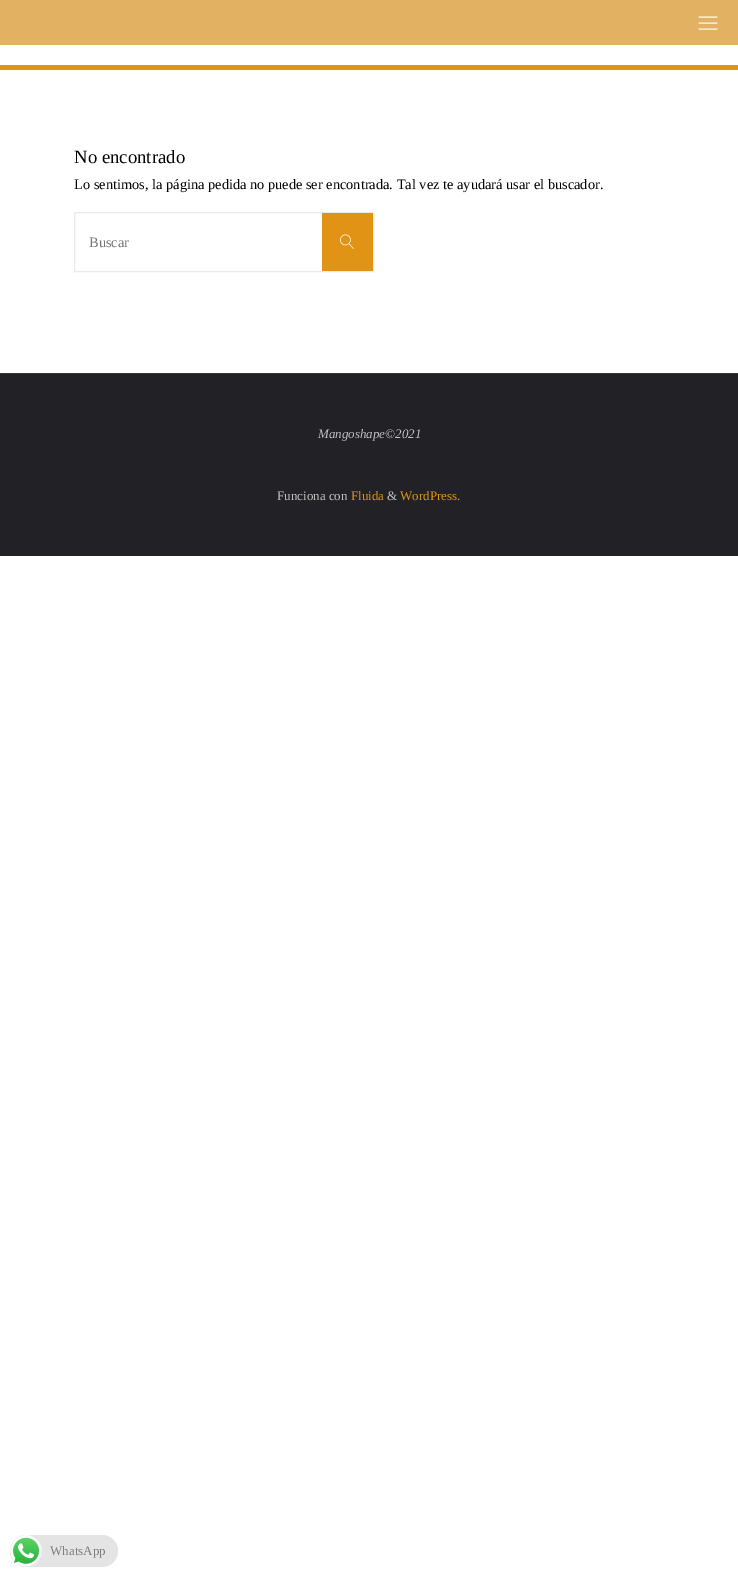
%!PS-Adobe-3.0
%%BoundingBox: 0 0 738 1577
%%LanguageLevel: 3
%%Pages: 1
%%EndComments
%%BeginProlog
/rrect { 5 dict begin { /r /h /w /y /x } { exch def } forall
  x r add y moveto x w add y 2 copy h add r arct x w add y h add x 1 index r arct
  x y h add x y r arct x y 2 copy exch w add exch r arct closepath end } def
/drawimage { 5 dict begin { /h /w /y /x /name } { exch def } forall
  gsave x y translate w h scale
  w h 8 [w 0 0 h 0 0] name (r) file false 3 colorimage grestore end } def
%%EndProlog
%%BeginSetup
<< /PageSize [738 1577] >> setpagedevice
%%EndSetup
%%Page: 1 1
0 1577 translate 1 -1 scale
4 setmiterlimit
1 setgray
0 0 738 1577 rectfill
0.886 0.694 0.384 setrgbcolor
0 0 738 45 rectfill
(images/1.raw) 698 16 20 14 drawimage
0.882 0.576 0.086 setrgbcolor
0 65 738 5 rectfill
0.922 setgray
74.5 212.5 299 59 rectstroke
0.882 0.576 0.086 setrgbcolor
322 213 51 58 rectfill
(images/2.raw) 340 234 14 15 drawimage
0.133 0.133 0.149 setrgbcolor
0 374 738 182 rectfill
0.212 0.212 0.227 setrgbcolor
0 373 738 1 rectfill
0.894 setgray
10 1535 108 32 16 rrect fill
(images/3.raw) 10 1535 32 32 drawimage
/LiberationSerif-Regular [18.75 0 0 -18.75 0 0] selectfont
0 setgray
74 163 moveto (No encontrado) show
/LiberationSerif-Regular [14.4 0 0 -14.4 0 0] selectfont
74 189 moveto (Lo sentimos, la página pedida no puede ser encontrada. Tal vez te ayudará usar el buscador.) show
0.459 setgray
89 247 moveto (Buscar) show
/LiberationSerif-Italic [13 0 0 -13 0 0] selectfont
0.757 setgray
318 438 moveto (Mangoshape©2021) show
/LiberationSerif-Regular [13 0 0 -13 0 0] selectfont
277 500 moveto (Funciona con) show
0.882 0.576 0.086 setrgbcolor
351 500 moveto (Fluida) show
0.757 setgray
387 500 moveto (&) show
0.882 0.576 0.086 setrgbcolor
400 500 moveto (WordPress.) show
0.498 0.49 0.49 setrgbcolor
50 1555 moveto (WhatsApp) show
showpage
%%EOF
